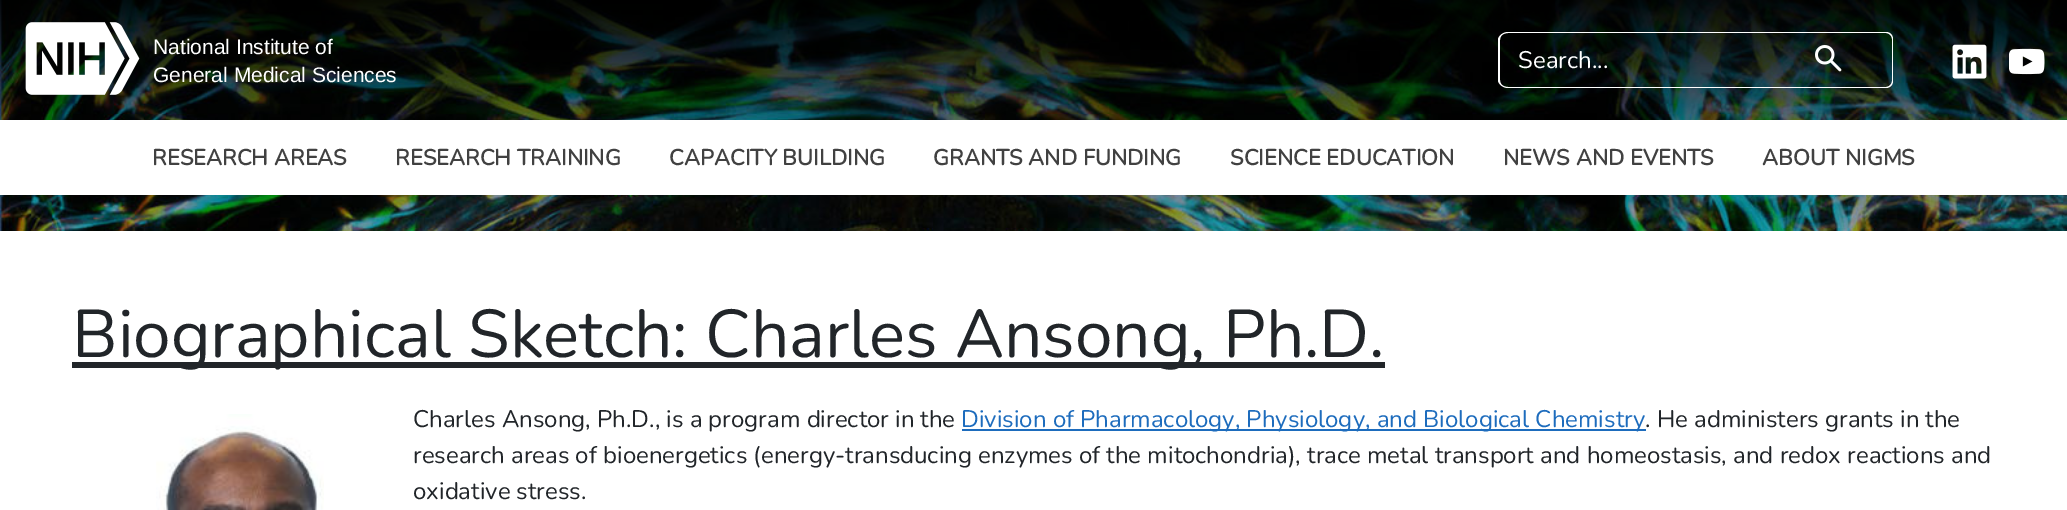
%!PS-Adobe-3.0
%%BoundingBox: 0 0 2067 510
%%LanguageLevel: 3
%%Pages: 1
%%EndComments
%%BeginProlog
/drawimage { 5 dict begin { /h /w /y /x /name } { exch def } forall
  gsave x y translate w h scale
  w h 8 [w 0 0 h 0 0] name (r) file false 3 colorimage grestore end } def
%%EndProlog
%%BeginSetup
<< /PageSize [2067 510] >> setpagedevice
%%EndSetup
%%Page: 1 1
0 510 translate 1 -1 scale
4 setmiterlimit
1 setgray
0 0 2067 510 rectfill
(images/1.raw) 0 0 2067 231 drawimage
(images/2.raw) 25 22 115 73 drawimage
newpath 1508 32 moveto 1766 32 lineto 1766 88 lineto 1508 88 lineto 1503 88 1498 84 1498 80 curveto 1498 40 lineto 1498 36 1503 32 1508 32 curveto closepath 1508 33 moveto 1766 33 lineto 1766 87 lineto 1508 87 lineto 1503 87 1500 84 1500 80 curveto 1500 40 lineto 1500 36 1503 33 1508 33 curveto closepath eofill
newpath 1766 32 moveto 1886 32 lineto 1890 32 1893 35 1893 39 curveto 1893 81 lineto 1893 85 1890 88 1886 88 curveto 1766 88 lineto closepath 1766 33 moveto 1886 33 lineto 1889 33 1892 36 1892 39 curveto 1892 81 lineto 1892 84 1889 87 1886 87 curveto 1766 87 lineto closepath eofill
(images/3.raw) 1815 45 27 27 drawimage
(images/4.raw) 1952 44 35 35 drawimage
(images/5.raw) 2009 48 36 27 drawimage
0 120 2067 75 rectfill
0.129 0.145 0.161 setrgbcolor
72 362 1313 6 rectfill
(images/6.raw) 156 414 168 96 drawimage
0.114 0.424 0.741 setrgbcolor
962 429 684 2 rectfill
/LiberationSans-Regular [21 0 0 -21 0 0] selectfont
1 setgray
153 54 moveto (National Institute of) show
153 82 moveto (General Medical Sciences) show
/Nunito-Regular [24 0 0 -24 0 0] selectfont
1518 68 moveto (Search...) show
/Nunito-Bold [22 0 0 -22 0 0] selectfont
0.255 setgray
152 165 moveto (RESEARCH AREAS) show
395 165 moveto (RESEARCH TRAINING) show
669 165 moveto (CAPACITY BUILDING) show
933 165 moveto (GRANTS AND FUNDING) show
1230 165 moveto (SCIENCE EDUCATION) show
1503 165 moveto (NEWS AND EVENTS) show
1762 165 moveto (ABOUT NIGMS) show
/Nunito-Regular [67.5 0 0 -67.5 0 0] selectfont
0.129 0.145 0.161 setrgbcolor
72 357 moveto (Biographical Sketch: Charles Ansong, Ph.D.) show
/Nunito-Regular [24 0 0 -24 0 0] selectfont
413 427 moveto (Charles Ansong, Ph.D., is a program director in the) show
0.114 0.424 0.741 setrgbcolor
961 427 moveto (Division of Pharmacology, Physiology, and Biological Chemistry) show
0.129 0.145 0.161 setrgbcolor
1645 427 moveto (. He administers grants in the) show
413 463 moveto (research areas of bioenergetics \(energy-transducing enzymes of the mitochondria\), trace metal transport and homeostasis, and redox reactions and) show
413 499 moveto (oxidative stress.) show
showpage
%%EOF
